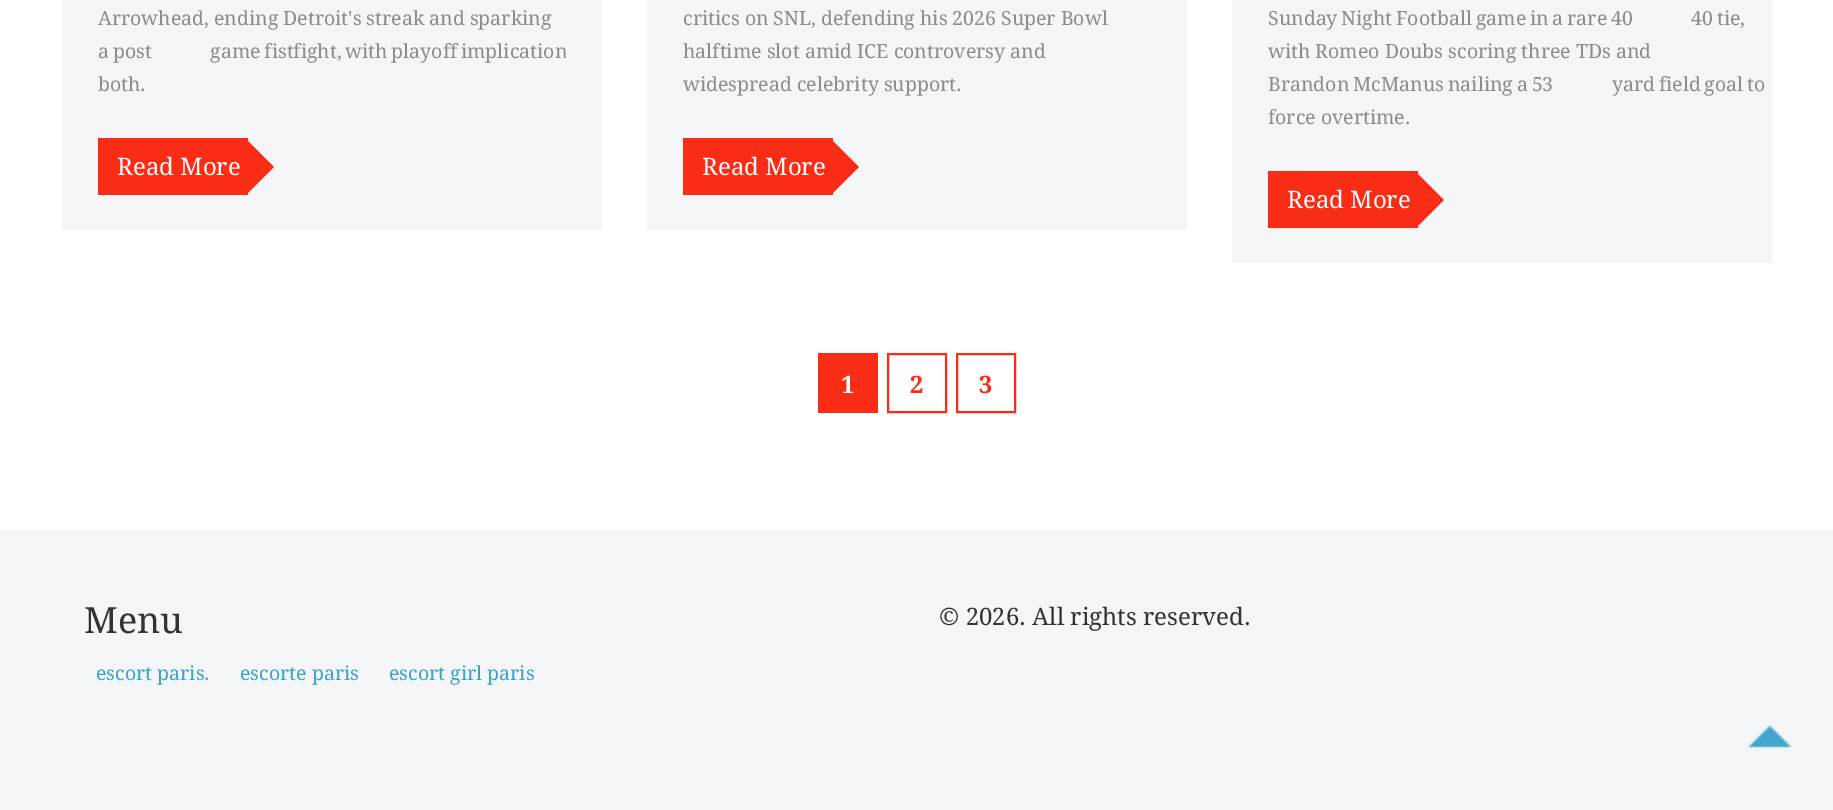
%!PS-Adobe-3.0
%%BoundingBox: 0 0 1833 810
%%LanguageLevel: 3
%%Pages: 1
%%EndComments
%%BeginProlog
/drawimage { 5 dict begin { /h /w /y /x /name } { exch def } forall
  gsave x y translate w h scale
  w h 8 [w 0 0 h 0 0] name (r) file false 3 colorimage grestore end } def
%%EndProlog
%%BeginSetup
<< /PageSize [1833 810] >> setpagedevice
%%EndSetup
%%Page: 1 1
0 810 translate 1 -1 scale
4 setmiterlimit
1 setgray
0 0 1833 810 rectfill
0.953 0.961 0.969 setrgbcolor
62 0 540 230 rectfill
0.976 0.173 0.086 setrgbcolor
98 138 150 57 rectfill
newpath 247 194 moveto 247 140 lineto 274 167 lineto closepath fill
0.953 0.961 0.969 setrgbcolor
647 0 540 230 rectfill
0.976 0.173 0.086 setrgbcolor
683 138 150 57 rectfill
newpath 832 194 moveto 832 140 lineto 859 167 lineto closepath fill
0.953 0.961 0.969 setrgbcolor
1232 0 540 263 rectfill
0.976 0.173 0.086 setrgbcolor
1268 171 150 57 rectfill
newpath 1417 227 moveto 1417 173 lineto 1444 200 lineto closepath fill
818 353 60 60 rectfill
2 setlinewidth
888 354 58 58 rectstroke
957 354 58 58 rectstroke
0.953 0.961 0.969 setrgbcolor
0 530 1833 280 rectfill
(images/1.raw) 1748 725 44 23 drawimage
/DroidSerif-Regular [19.5 0 0 -19.5 0 0] selectfont
0.533 0.553 0.569 setrgbcolor
98 25 moveto (Arrowhead, ending Detroit's streak and sparking) show
gsave
98 0 468 102 rectclip
98 58 moveto -1.25 0 32 (a post‑game fistfight, with playoff implications for) widthshow
grestore
98 91 moveto (both.) show
/DroidSerif-Regular [24 0 0 -24 0 0] selectfont
1 setgray
117 175 moveto (Read More) show
/DroidSerif-Regular [19.5 0 0 -19.5 0 0] selectfont
0.533 0.553 0.569 setrgbcolor
683 25 moveto (critics on SNL, defending his 2026 Super Bowl) show
683 58 moveto (halftime slot amid ICE controversy and) show
683 91 moveto (widespread celebrity support.) show
/DroidSerif-Regular [24 0 0 -24 0 0] selectfont
1 setgray
702 175 moveto (Read More) show
/DroidSerif-Regular [19.5 0 0 -19.5 0 0] selectfont
0.533 0.553 0.569 setrgbcolor
1268 25 moveto -1.25 0 32 (Sunday Night Football game in a rare 40‑40 tie,) widthshow
1268 58 moveto (with Romeo Doubs scoring three TDs and) show
1268 91 moveto -1.25 0 32 (Brandon McManus nailing a 53‑yard field goal to) widthshow
1268 124 moveto (force overtime.) show
/DroidSerif-Regular [24 0 0 -24 0 0] selectfont
1 setgray
1287 208 moveto (Read More) show
/DroidSerif-Bold [24 0 0 -24 0 0] selectfont
841 393 moveto (1) show
0.976 0.173 0.086 setrgbcolor
910 393 moveto (2) show
979 393 moveto (3) show
/DroidSerif-Regular [36 0 0 -36 0 0] selectfont
0.2 setgray
84 633 moveto (Menu) show
/DroidSerif-Regular [19.5 0 0 -19.5 0 0] selectfont
0.224 0.639 0.796 setrgbcolor
96 680 moveto (escort paris.) show
240 680 moveto (escorte paris) show
389 680 moveto (escort girl paris) show
/DroidSerif-Regular [24 0 0 -24 0 0] selectfont
0.2 setgray
939 625 moveto (© 2026. All rights reserved.) show
showpage
%%EOF
